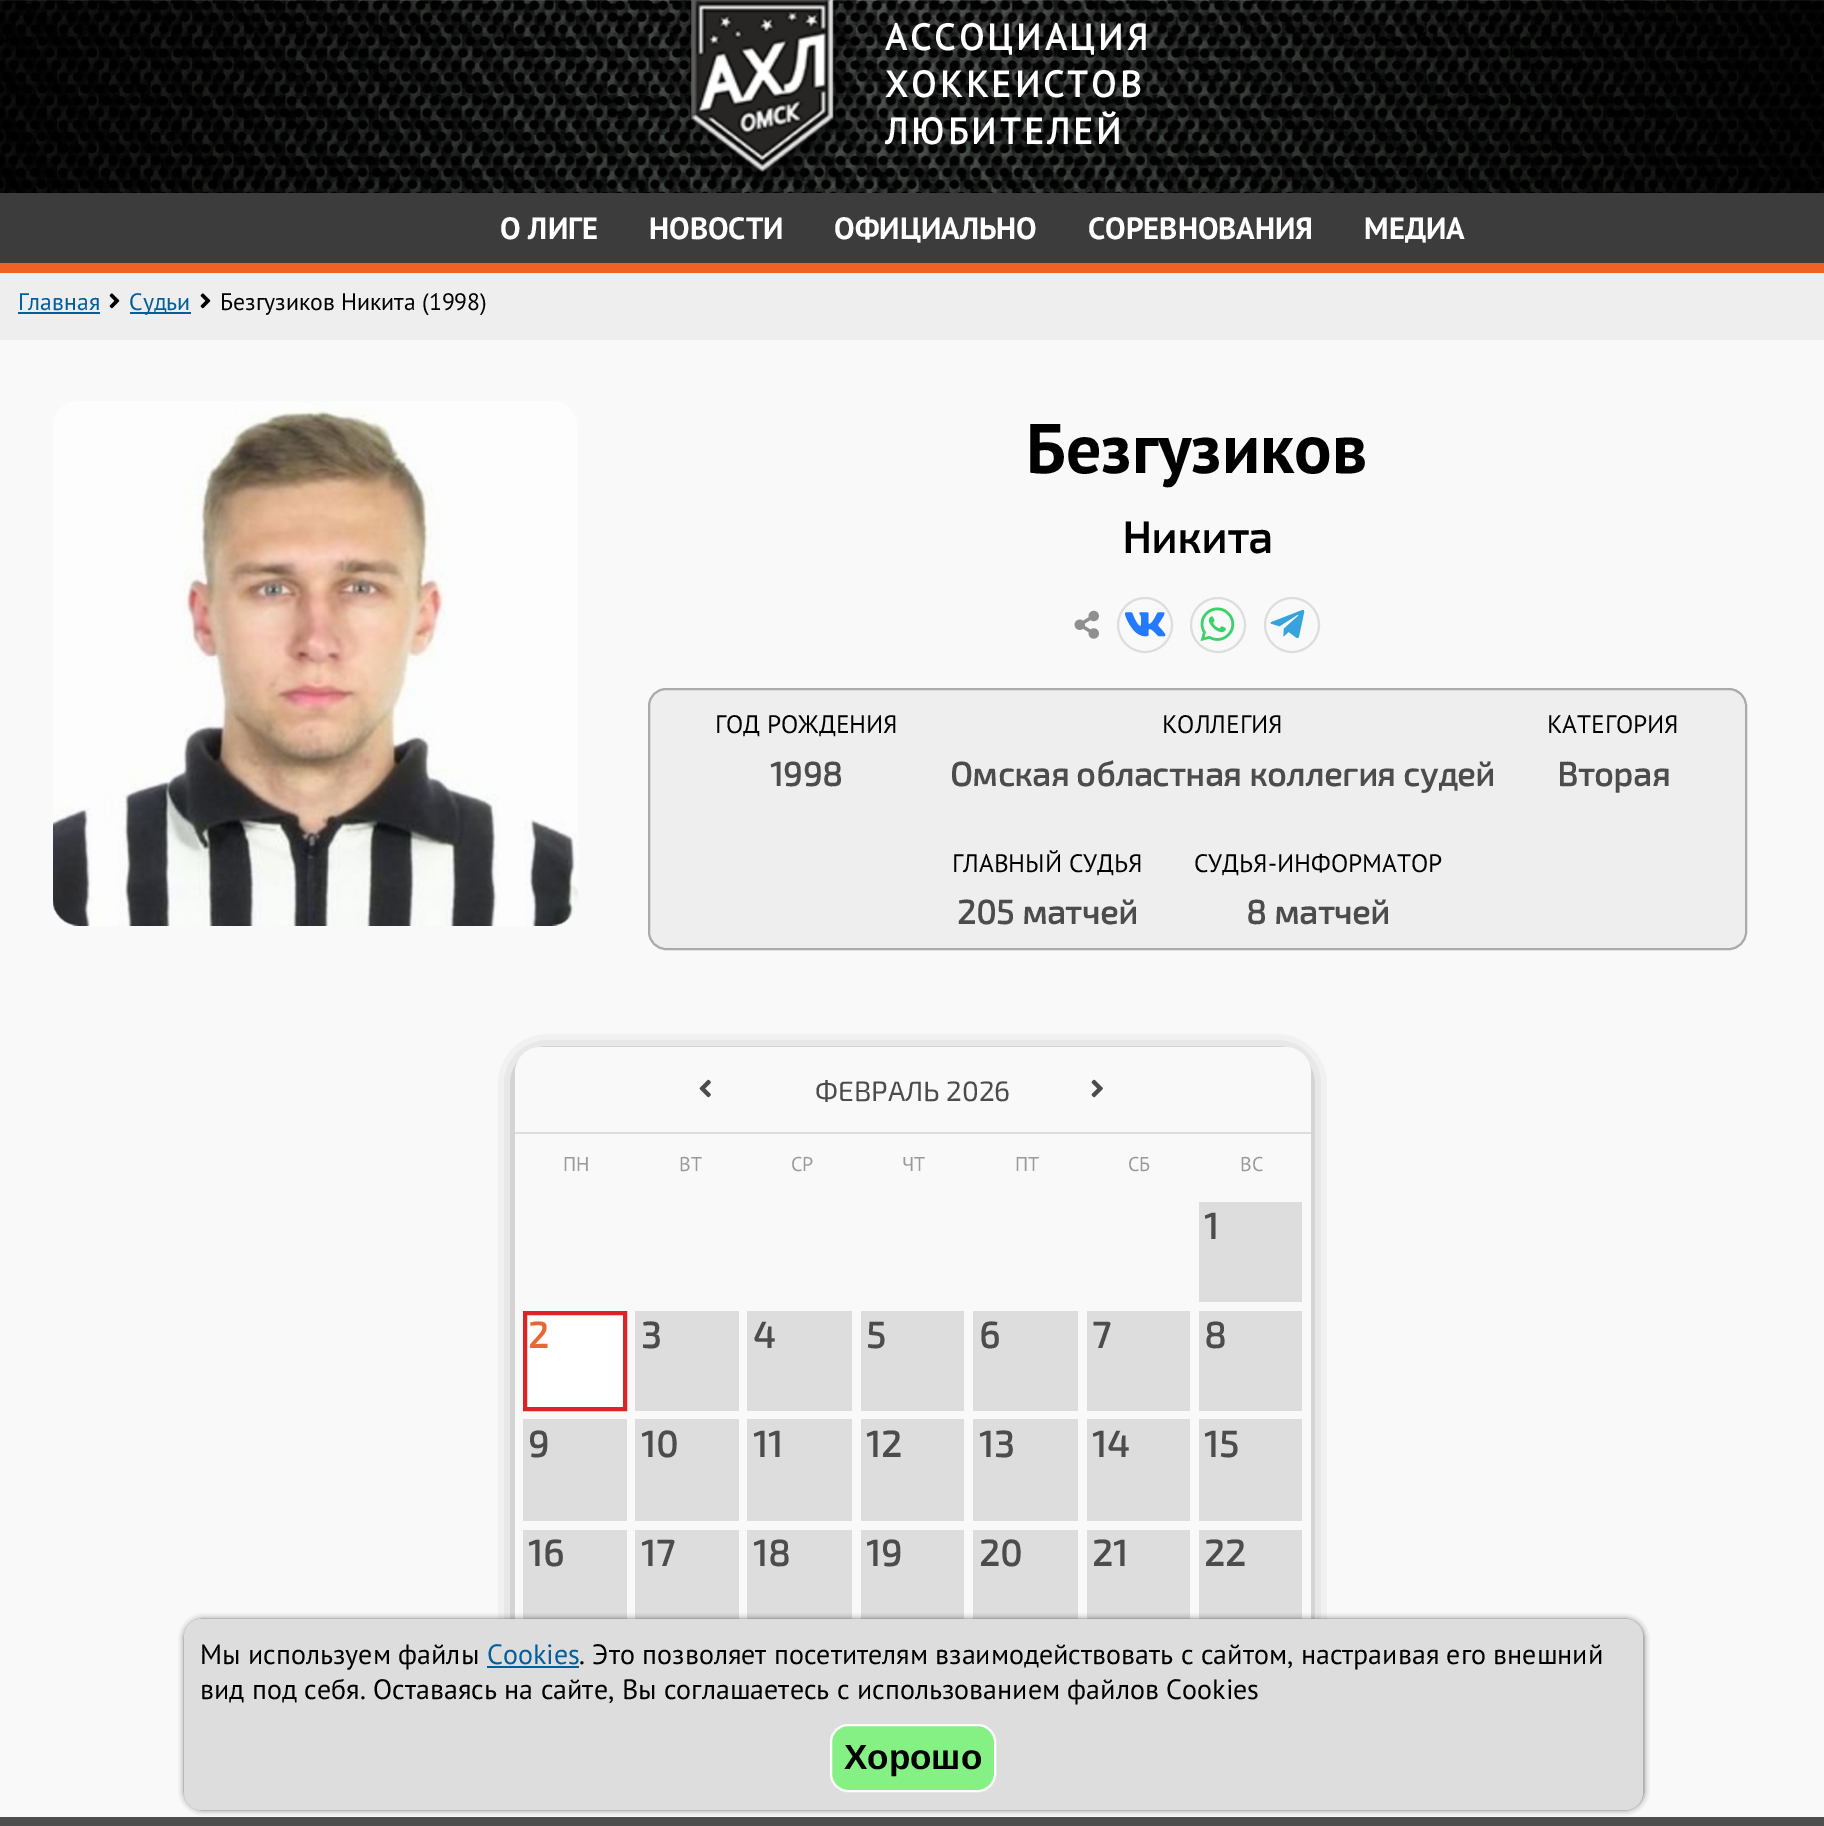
%!PS-Adobe-3.0
%%BoundingBox: 0 0 1824 1826
%%LanguageLevel: 3
%%Pages: 1
%%EndComments
%%BeginProlog
/setalpha { dup .setfillconstantalpha .setstrokeconstantalpha } def
/rrect { 5 dict begin { /r /h /w /y /x } { exch def } forall
  x r add y moveto x w add y 2 copy h add r arct x w add y h add x 1 index r arct
  x y h add x y r arct x y 2 copy exch w add exch r arct closepath end } def
/softshadow { 12 dict begin { /a /b /q /h /w /y /x } { exch def } forall gsave /was 0 def
  9 -2 -9 { dup b mul 4 div /e exch def 1 sub .425 mul 2.718 exch exp 1 add a .99 .min exch div /now exch def
    1 1 now sub 1 was sub div sub setalpha /was now def
    w h .min e 2 mul add 0 gt { x e sub y e sub w e 2 mul add h e 2 mul add
      q e add b .6 mul add w h .min 2 div e add .min 0 .max rrect fill } if } for grestore end } def
/drawimage { 5 dict begin { /h /w /y /x /name } { exch def } forall
  gsave x y translate w h scale
  w h 8 [w 0 0 h 0 0] name (r) file false 3 colorimage grestore end } def
%%EndProlog
%%BeginSetup
<< /PageSize [1824 1826] /PageUsesTransparency true >> setpagedevice
%%EndSetup
%%Page: 1 1
0 .pushpdf14devicefilter
0 1826 translate 1 -1 scale
4 setmiterlimit
0.976 setgray
0 0 1824 1826 rectfill
(images/1.raw) 0 0 1824 193 drawimage
(images/2.raw) 680 0 173 188 drawimage
0.933 0.388 0.133 setrgbcolor
0 263 1824 10 rectfill
0.235 setgray
0 193 1824 70 rectfill
0.933 setgray
0 273 1824 67 rectfill
0.012 0.373 0.612 setrgbcolor
18 312 82 2 rectfill
(images/3.raw) 109 293 11 16 drawimage
130 312 61 2 rectfill
(images/3.raw) 200 293 11 16 drawimage
(images/4.raw) 53 401 525 525 drawimage
(images/5.raw) 1074 610 25 29 drawimage
0.867 setgray
2 setlinewidth
newpath 1145 625 27 0 360 arc closepath stroke
(images/6.raw) 1124 612 42 25 drawimage
newpath 1218 625 27 0 360 arc closepath stroke
(images/7.raw) 1200 607 35 35 drawimage
newpath 1292 625 27 0 360 arc closepath stroke
(images/8.raw) 1270 609 35 30 drawimage
0.933 setgray
649 689 1097 260 17 rrect gsave fill grestore
0.667 setgray
stroke
0 setgray
525 1061 775 679 16 12 1 softshadow
0.976 setgray
515 1047 796 700 26 rrect fill
(images/9.raw) 699 1079 12 19 drawimage
(images/10.raw) 1091 1079 12 19 drawimage
0.867 setgray
515 1132 796 2 rectfill
1199 1202 103 100 rectfill
1 setgray
newpath 525 1313 moveto 625 1313 lineto 625 1409 lineto 525 1409 lineto closepath gsave fill grestore
0.859 0.141 0.141 setrgbcolor
4 setlinewidth
stroke
0.867 setgray
635 1311 104 100 rectfill
747 1311 105 100 rectfill
861 1311 103 100 rectfill
973 1311 105 100 rectfill
1087 1311 103 100 rectfill
1199 1311 103 100 rectfill
523 1419 104 102 rectfill
635 1419 104 102 rectfill
747 1419 105 102 rectfill
861 1419 103 102 rectfill
973 1419 105 102 rectfill
1087 1419 103 102 rectfill
1199 1419 103 102 rectfill
523 1530 104 89 rectfill
635 1530 104 89 rectfill
747 1530 105 89 rectfill
861 1530 103 89 rectfill
973 1530 105 89 rectfill
1087 1530 103 89 rectfill
1199 1530 103 89 rectfill
0.306 setgray
0 1817 1824 9 rectfill
0 setgray
186 1621 1456 187 16 3.5 1 softshadow
0.867 setgray
184 1619 1459 191 18 rrect fill
0.012 0.373 0.612 setrgbcolor
487 1666 92 2 rectfill
0.522 0.945 0.522 setrgbcolor
831 1725 164 66 17 rrect gsave fill grestore
1 setgray
2 setlinewidth
stroke
/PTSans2-Bold [36.5 0 0 -36.5 0 0] selectfont
885 50 moveto 3.6 0 (АССОЦИАЦИЯ) ashow
885 97 moveto 3.6 0 (ХОККЕИСТОВ) ashow
885 144 moveto 3.6 0 (ЛЮБИТЕЛЕЙ) ashow
/PTSans-Bold [30.75 0 0 -30.75 0 0] selectfont
500 239 moveto (О ЛИГЕ) show
649 239 moveto (НОВОСТИ) show
834 239 moveto (ОФИЦИАЛЬНО) show
1088 239 moveto (СОРЕВНОВАНИЯ) show
1364 239 moveto (МЕДИА) show
/PTSans-Regular [23.75 0 0 -23.75 0 0] selectfont
0.012 0.373 0.612 setrgbcolor
18 310 moveto (Главная) show
129 310 moveto (Судьи) show
0 setgray
220 310 moveto (Безгузиков Никита \(1998\)) show
/PTSans-Bold [70 0 0 -70 0 0] selectfont
1026 473 moveto (Безгузиков) show
/Exo2-Bold [44 0 0 -44 0 0] selectfont
1122 553 moveto (Никита) show
/PTSans-Regular [25.25 0 0 -25.25 0 0] selectfont
715 733 moveto (ГОД РОЖДЕНИЯ) show
/Exo2-Bold [33.6 0 0 -33.6 0 0] selectfont
0.298 setgray
770 786 moveto (1998) show
/PTSans-Regular [25.25 0 0 -25.25 0 0] selectfont
0 setgray
1162 733 moveto (КОЛЛЕГИЯ) show
/Exo2-Bold [33.6 0 0 -33.6 0 0] selectfont
0.298 setgray
950 786 moveto (Омская областная коллегия судей) show
/PTSans-Regular [25.25 0 0 -25.25 0 0] selectfont
0 setgray
1547 733 moveto (КАТЕГОРИЯ) show
/Exo2-Bold [33.6 0 0 -33.6 0 0] selectfont
0.298 setgray
1557 786 moveto (Вторая) show
/PTSans-Regular [25.25 0 0 -25.25 0 0] selectfont
0 setgray
952 872 moveto (ГЛАВНЫЙ СУДЬЯ) show
/Exo2-Bold [33.6 0 0 -33.6 0 0] selectfont
0.298 setgray
957 924 moveto (205 матчей) show
/PTSans-Regular [25.25 0 0 -25.25 0 0] selectfont
0 setgray
1194 872 moveto (СУДЬЯ-ИНФОРМАТОР) show
/Exo2-Bold [33.6 0 0 -33.6 0 0] selectfont
0.298 setgray
1246 924 moveto (8 матчей) show
/Exo2-Regular [28 0 0 -28 0 0] selectfont
815 1101 moveto (ФЕВРАЛЬ 2026) show
/PTSans-Regular [20 0 0 -20 0 0] selectfont
0.6 setgray
563 1171 moveto (ПН) show
679 1171 moveto (ВТ) show
791 1171 moveto (СР) show
902 1171 moveto (ЧТ) show
1015 1171 moveto (ПТ) show
1128 1171 moveto (СБ) show
1240 1171 moveto (ВС) show
/Exo2-Bold [36.5 0 0 -36.5 0 0] selectfont
0.298 setgray
1204 1239 moveto (1) show
0.91 0.404 0.208 setrgbcolor
528 1348 moveto (2) show
0.298 setgray
641 1348 moveto (3) show
753 1348 moveto (4) show
866 1348 moveto (5) show
979 1348 moveto (6) show
1092 1348 moveto (7) show
1204 1348 moveto (8) show
528 1457 moveto (9) show
641 1457 moveto (10) show
753 1457 moveto (11) show
866 1457 moveto (12) show
979 1457 moveto (13) show
1092 1457 moveto (14) show
1204 1457 moveto (15) show
528 1566 moveto (16) show
641 1566 moveto (17) show
753 1566 moveto (18) show
866 1566 moveto (19) show
979 1566 moveto (20) show
1092 1566 moveto (21) show
1204 1566 moveto (22) show
/PTSans-Regular [28 0 0 -28 0 0] selectfont
0 setgray
200 1664 moveto (Мы используем файлы) show
0.012 0.373 0.612 setrgbcolor
487 1664 moveto (Cookies) show
0 setgray
579 1664 moveto (. Это позволяет посетителям взаимодействовать с сайтом, настраивая его внешний) show
200 1699 moveto (вид под себя. Оставаясь на сайте, Вы соглашаетесь с использованием файлов Cookies) show
/LiberationSans-Bold [35 0 0 -35 0 0] selectfont
844 1769 moveto (Хорошо) show
.poppdf14devicefilter showpage
%%EOF
